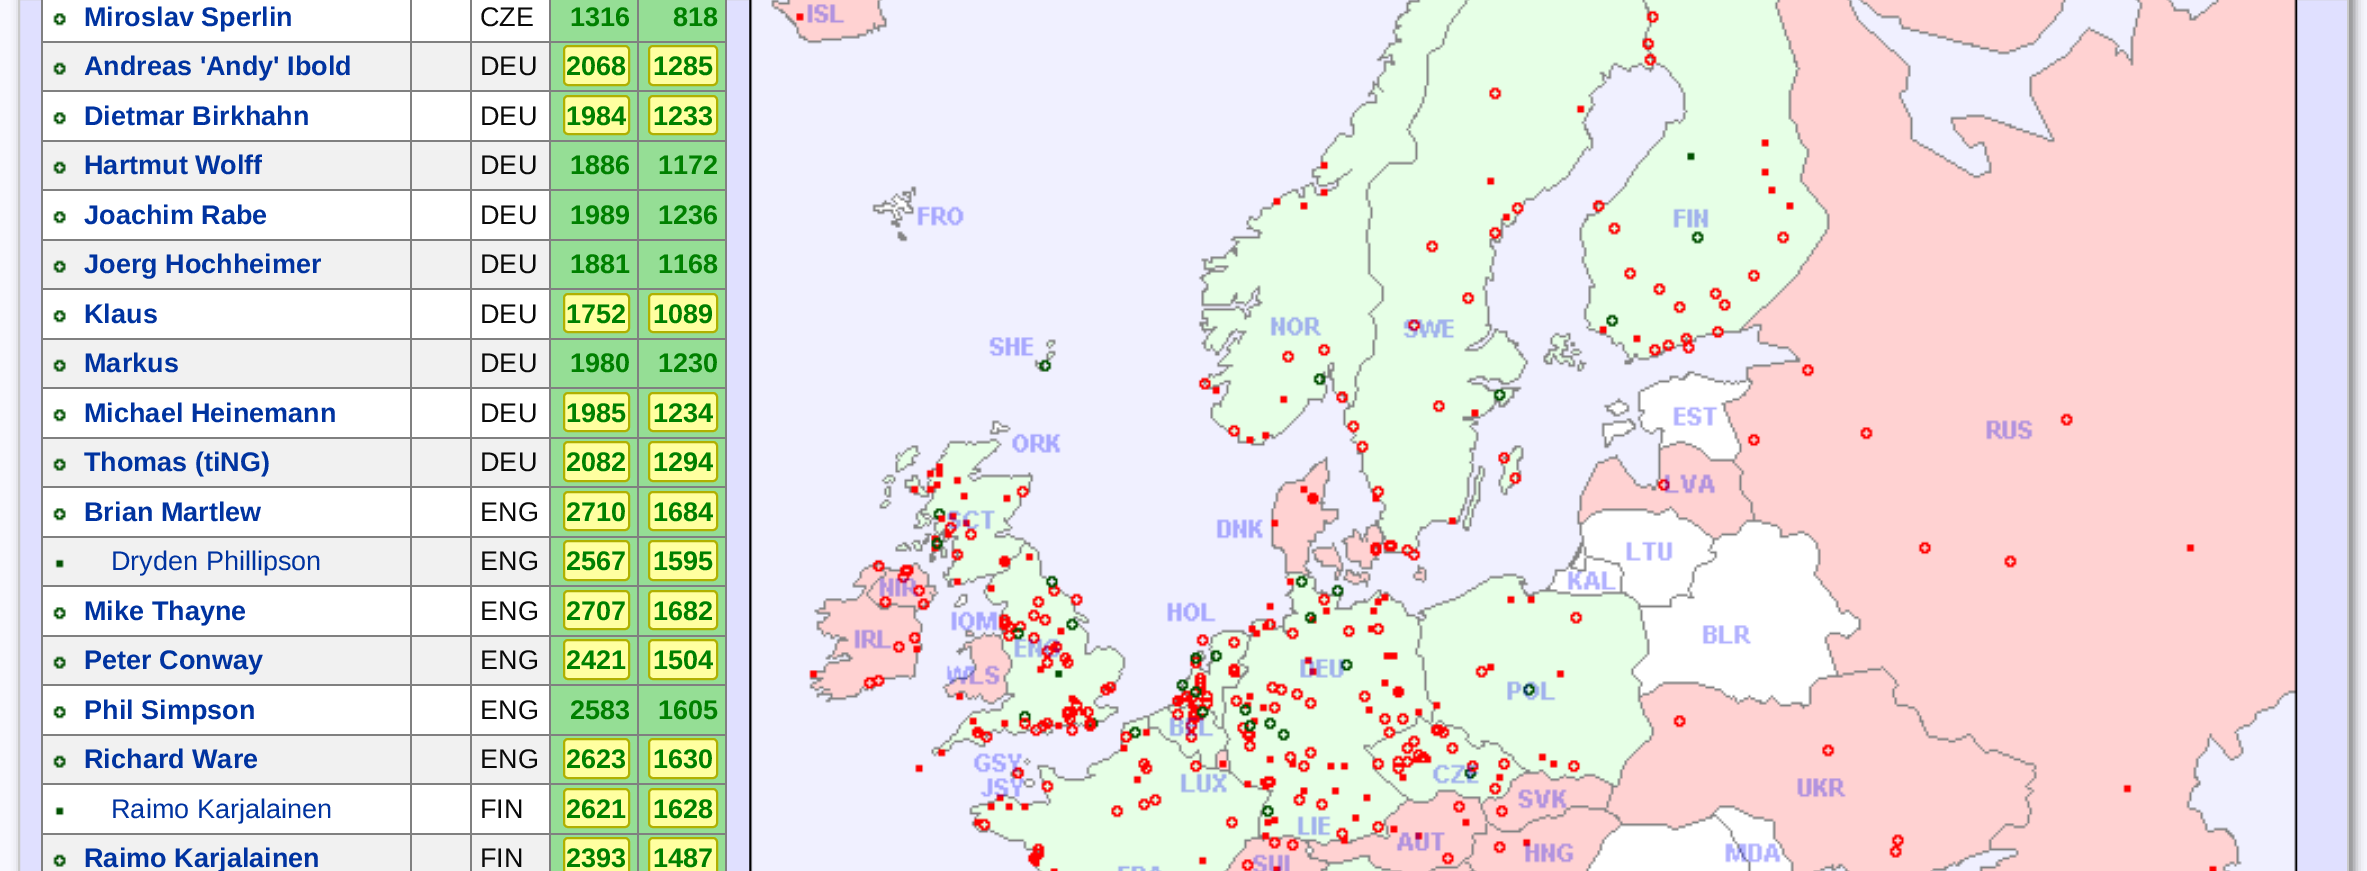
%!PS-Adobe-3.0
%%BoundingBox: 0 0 2367 871
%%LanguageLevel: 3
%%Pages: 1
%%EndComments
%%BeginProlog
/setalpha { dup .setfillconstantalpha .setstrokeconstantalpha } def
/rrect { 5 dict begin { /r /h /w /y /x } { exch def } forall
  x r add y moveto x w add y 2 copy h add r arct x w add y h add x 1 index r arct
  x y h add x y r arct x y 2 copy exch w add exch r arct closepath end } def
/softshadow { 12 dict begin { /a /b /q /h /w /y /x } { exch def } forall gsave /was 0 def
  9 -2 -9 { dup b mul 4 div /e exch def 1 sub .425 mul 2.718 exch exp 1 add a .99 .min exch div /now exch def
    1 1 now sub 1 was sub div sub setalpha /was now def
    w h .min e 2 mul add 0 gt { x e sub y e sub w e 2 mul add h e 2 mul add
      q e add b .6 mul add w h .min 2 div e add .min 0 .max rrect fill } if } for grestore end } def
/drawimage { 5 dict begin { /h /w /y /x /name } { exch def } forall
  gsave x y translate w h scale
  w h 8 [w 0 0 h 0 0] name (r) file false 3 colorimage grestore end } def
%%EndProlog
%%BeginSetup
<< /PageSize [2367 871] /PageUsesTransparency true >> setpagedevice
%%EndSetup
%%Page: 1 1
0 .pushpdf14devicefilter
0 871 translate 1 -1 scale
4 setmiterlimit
0.973 0.973 1 setrgbcolor
0 0 2367 871 rectfill
0.467 setgray
23 -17 2331 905 0 5.5 1 softshadow
0.878 0.878 1 setrgbcolor
newpath 19 -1 moveto 2348 -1 lineto 2348 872 lineto 19 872 lineto closepath gsave fill grestore
0.792 setgray
2 setlinewidth
stroke
1 setgray
43 0 506 833 rectfill
0.502 setgray
725 0 2 871 rectfill
(images/1.raw) 53 13 13 13 drawimage
637 41 90 2 rectfill
637 90 90 2 rectfill
637 140 90 2 rectfill
637 189 90 2 rectfill
637 239 90 2 rectfill
637 288 90 2 rectfill
637 338 90 2 rectfill
637 387 90 2 rectfill
637 437 90 2 rectfill
637 486 90 2 rectfill
637 536 90 2 rectfill
637 585 90 2 rectfill
637 635 90 2 rectfill
637 684 90 2 rectfill
637 734 90 2 rectfill
637 783 90 2 rectfill
637 833 90 2 rectfill
637 833 2 38 rectfill
549 833 90 2 rectfill
637 783 2 52 rectfill
549 783 90 2 rectfill
637 734 2 51 rectfill
549 734 90 2 rectfill
637 684 2 52 rectfill
549 684 90 2 rectfill
637 635 2 51 rectfill
549 635 90 2 rectfill
637 585 2 52 rectfill
549 585 90 2 rectfill
637 536 2 51 rectfill
549 536 90 2 rectfill
637 486 2 52 rectfill
549 486 90 2 rectfill
637 437 2 51 rectfill
549 437 90 2 rectfill
637 387 2 52 rectfill
549 387 90 2 rectfill
637 338 2 51 rectfill
549 338 90 2 rectfill
637 288 2 52 rectfill
549 288 90 2 rectfill
637 239 2 51 rectfill
549 239 90 2 rectfill
637 189 2 52 rectfill
549 189 90 2 rectfill
637 140 2 51 rectfill
549 140 90 2 rectfill
637 90 2 52 rectfill
549 90 90 2 rectfill
637 41 2 51 rectfill
549 41 90 2 rectfill
549 833 2 38 rectfill
470 833 81 2 rectfill
549 783 2 52 rectfill
470 783 81 2 rectfill
549 734 2 51 rectfill
470 734 81 2 rectfill
549 684 2 52 rectfill
470 684 81 2 rectfill
549 635 2 51 rectfill
470 635 81 2 rectfill
549 585 2 52 rectfill
470 585 81 2 rectfill
549 536 2 51 rectfill
470 536 81 2 rectfill
549 486 2 52 rectfill
470 486 81 2 rectfill
549 437 2 51 rectfill
470 437 81 2 rectfill
549 387 2 52 rectfill
470 387 81 2 rectfill
549 338 2 51 rectfill
470 338 81 2 rectfill
549 288 2 52 rectfill
470 288 81 2 rectfill
549 239 2 51 rectfill
470 239 81 2 rectfill
549 189 2 52 rectfill
470 189 81 2 rectfill
549 140 2 51 rectfill
470 140 81 2 rectfill
549 90 2 52 rectfill
470 90 81 2 rectfill
549 41 2 51 rectfill
470 41 81 2 rectfill
0.945 setgray
43 43 506 47 rectfill
43 142 506 47 rectfill
43 241 506 47 rectfill
43 340 506 47 rectfill
43 439 506 47 rectfill
43 538 506 47 rectfill
43 637 506 47 rectfill
43 736 506 47 rectfill
43 835 506 36 rectfill
0.502 setgray
470 833 2 38 rectfill
410 833 63 2 rectfill
470 783 2 52 rectfill
410 783 63 2 rectfill
470 734 2 51 rectfill
410 734 63 2 rectfill
470 684 2 52 rectfill
410 684 63 2 rectfill
470 635 2 51 rectfill
410 635 63 2 rectfill
470 585 2 52 rectfill
410 585 63 2 rectfill
470 536 2 51 rectfill
410 536 63 2 rectfill
470 486 2 52 rectfill
410 486 63 2 rectfill
470 437 2 51 rectfill
410 437 63 2 rectfill
470 387 2 52 rectfill
410 387 63 2 rectfill
470 338 2 51 rectfill
410 338 63 2 rectfill
470 288 2 52 rectfill
410 288 63 2 rectfill
470 239 2 51 rectfill
410 239 63 2 rectfill
470 189 2 52 rectfill
410 189 63 2 rectfill
470 140 2 51 rectfill
410 140 63 2 rectfill
470 90 2 52 rectfill
410 90 63 2 rectfill
470 41 2 51 rectfill
410 41 63 2 rectfill
410 833 2 38 rectfill
41 833 371 2 rectfill
410 783 2 52 rectfill
41 783 371 2 rectfill
410 734 2 51 rectfill
41 734 371 2 rectfill
410 684 2 52 rectfill
41 684 371 2 rectfill
410 635 2 51 rectfill
41 635 371 2 rectfill
410 585 2 52 rectfill
41 585 371 2 rectfill
410 536 2 51 rectfill
41 536 371 2 rectfill
410 486 2 52 rectfill
41 486 371 2 rectfill
410 437 2 51 rectfill
41 437 371 2 rectfill
410 387 2 52 rectfill
41 387 371 2 rectfill
410 338 2 51 rectfill
41 338 371 2 rectfill
410 288 2 52 rectfill
41 288 371 2 rectfill
410 239 2 51 rectfill
41 239 371 2 rectfill
410 189 2 52 rectfill
41 189 371 2 rectfill
410 140 2 51 rectfill
41 140 371 2 rectfill
410 90 2 52 rectfill
41 90 371 2 rectfill
410 41 2 51 rectfill
41 41 371 2 rectfill
410 0 2 43 rectfill
470 0 2 43 rectfill
0.584 0.871 0.584 setrgbcolor
551 0 86 41 rectfill
0.502 setgray
549 0 2 43 rectfill
0.584 0.871 0.584 setrgbcolor
639 0 86 41 rectfill
0.502 setgray
637 0 2 43 rectfill
41 833 2 38 rectfill
41 783 2 52 rectfill
41 734 2 51 rectfill
41 684 2 52 rectfill
41 635 2 51 rectfill
41 585 2 52 rectfill
41 536 2 51 rectfill
41 486 2 52 rectfill
41 437 2 51 rectfill
41 387 2 52 rectfill
41 338 2 51 rectfill
41 288 2 52 rectfill
41 239 2 51 rectfill
41 189 2 52 rectfill
41 140 2 51 rectfill
41 90 2 52 rectfill
41 0 2 92 rectfill
(images/2.raw) 53 62 13 13 drawimage
0.584 0.871 0.584 setrgbcolor
551 43 86 47 rectfill
1 1 0.627 setrgbcolor
564 46 65 39 4 rrect gsave fill grestore
0.69 0.69 0 setrgbcolor
stroke
0.584 0.871 0.584 setrgbcolor
639 43 86 47 rectfill
1 1 0.627 setrgbcolor
649 46 68 39 4 rrect gsave fill grestore
0.69 0.69 0 setrgbcolor
stroke
(images/1.raw) 53 112 13 13 drawimage
0.584 0.871 0.584 setrgbcolor
551 92 86 48 rectfill
1 1 0.627 setrgbcolor
564 96 65 38 4 rrect gsave fill grestore
0.69 0.69 0 setrgbcolor
stroke
0.584 0.871 0.584 setrgbcolor
639 92 86 48 rectfill
1 1 0.627 setrgbcolor
649 96 68 38 4 rrect gsave fill grestore
0.69 0.69 0 setrgbcolor
stroke
(images/2.raw) 53 161 13 13 drawimage
0.584 0.871 0.584 setrgbcolor
551 142 86 47 rectfill
639 142 86 47 rectfill
(images/1.raw) 53 211 13 13 drawimage
551 191 86 48 rectfill
639 191 86 48 rectfill
(images/2.raw) 53 260 13 13 drawimage
551 241 86 47 rectfill
639 241 86 47 rectfill
(images/1.raw) 53 310 13 13 drawimage
551 290 86 48 rectfill
1 1 0.627 setrgbcolor
564 294 65 38 4 rrect gsave fill grestore
0.69 0.69 0 setrgbcolor
stroke
0.584 0.871 0.584 setrgbcolor
639 290 86 48 rectfill
1 1 0.627 setrgbcolor
649 294 68 38 4 rrect gsave fill grestore
0.69 0.69 0 setrgbcolor
stroke
(images/2.raw) 53 359 13 13 drawimage
0.584 0.871 0.584 setrgbcolor
551 340 86 47 rectfill
639 340 86 47 rectfill
(images/1.raw) 53 409 13 13 drawimage
551 389 86 48 rectfill
1 1 0.627 setrgbcolor
564 393 65 38 4 rrect gsave fill grestore
0.69 0.69 0 setrgbcolor
stroke
0.584 0.871 0.584 setrgbcolor
639 389 86 48 rectfill
1 1 0.627 setrgbcolor
649 393 68 38 4 rrect gsave fill grestore
0.69 0.69 0 setrgbcolor
stroke
(images/2.raw) 53 458 13 13 drawimage
0.584 0.871 0.584 setrgbcolor
551 439 86 47 rectfill
1 1 0.627 setrgbcolor
564 442 65 39 4 rrect gsave fill grestore
0.69 0.69 0 setrgbcolor
stroke
0.584 0.871 0.584 setrgbcolor
639 439 86 47 rectfill
1 1 0.627 setrgbcolor
649 442 68 39 4 rrect gsave fill grestore
0.69 0.69 0 setrgbcolor
stroke
(images/1.raw) 53 508 13 13 drawimage
0.584 0.871 0.584 setrgbcolor
551 488 86 48 rectfill
1 1 0.627 setrgbcolor
564 492 65 38 4 rrect gsave fill grestore
0.69 0.69 0 setrgbcolor
stroke
0.584 0.871 0.584 setrgbcolor
639 488 86 48 rectfill
1 1 0.627 setrgbcolor
649 492 68 38 4 rrect gsave fill grestore
0.69 0.69 0 setrgbcolor
stroke
(images/3.raw) 55 559 9 9 drawimage
0.584 0.871 0.584 setrgbcolor
551 538 86 47 rectfill
1 1 0.627 setrgbcolor
564 541 65 39 4 rrect gsave fill grestore
0.69 0.69 0 setrgbcolor
stroke
0.584 0.871 0.584 setrgbcolor
639 538 86 47 rectfill
1 1 0.627 setrgbcolor
649 541 68 39 4 rrect gsave fill grestore
0.69 0.69 0 setrgbcolor
stroke
(images/1.raw) 53 607 13 13 drawimage
0.584 0.871 0.584 setrgbcolor
551 587 86 48 rectfill
1 1 0.627 setrgbcolor
564 591 65 38 4 rrect gsave fill grestore
0.69 0.69 0 setrgbcolor
stroke
0.584 0.871 0.584 setrgbcolor
639 587 86 48 rectfill
1 1 0.627 setrgbcolor
649 591 68 38 4 rrect gsave fill grestore
0.69 0.69 0 setrgbcolor
stroke
(images/2.raw) 53 656 13 13 drawimage
0.584 0.871 0.584 setrgbcolor
551 637 86 47 rectfill
1 1 0.627 setrgbcolor
564 640 65 39 4 rrect gsave fill grestore
0.69 0.69 0 setrgbcolor
stroke
0.584 0.871 0.584 setrgbcolor
639 637 86 47 rectfill
1 1 0.627 setrgbcolor
649 640 68 39 4 rrect gsave fill grestore
0.69 0.69 0 setrgbcolor
stroke
(images/1.raw) 53 706 13 13 drawimage
0.584 0.871 0.584 setrgbcolor
551 686 86 48 rectfill
639 686 86 48 rectfill
(images/4.raw) 53 755 13 13 drawimage
551 736 86 47 rectfill
1 1 0.627 setrgbcolor
564 739 65 39 4 rrect gsave fill grestore
0.69 0.69 0 setrgbcolor
stroke
0.584 0.871 0.584 setrgbcolor
639 736 86 47 rectfill
1 1 0.627 setrgbcolor
649 739 68 39 4 rrect gsave fill grestore
0.69 0.69 0 setrgbcolor
stroke
(images/5.raw) 55 807 9 9 drawimage
0.584 0.871 0.584 setrgbcolor
551 785 86 48 rectfill
1 1 0.627 setrgbcolor
564 789 65 38 4 rrect gsave fill grestore
0.69 0.69 0 setrgbcolor
stroke
0.584 0.871 0.584 setrgbcolor
639 785 86 48 rectfill
1 1 0.627 setrgbcolor
649 789 68 38 4 rrect gsave fill grestore
0.69 0.69 0 setrgbcolor
stroke
(images/2.raw) 53 854 13 13 drawimage
0.584 0.871 0.584 setrgbcolor
551 835 86 36 rectfill
1 1 0.627 setrgbcolor
564 838 65 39 4 rrect gsave fill grestore
0.69 0.69 0 setrgbcolor
stroke
0.584 0.871 0.584 setrgbcolor
639 835 86 36 rectfill
1 1 0.627 setrgbcolor
649 838 68 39 4 rrect gsave fill grestore
0.69 0.69 0 setrgbcolor
stroke
(images/6.raw) 749 0 1549 871 drawimage
/LiberationSans-Bold [27 0 0 -27 0 0] selectfont
0 0.2 0.627 setrgbcolor
84 26 moveto (Miroslav Sperlin) show
/LiberationSans-Regular [27 0 0 -27 0 0] selectfont
0.039 setgray
480 26 moveto (CZE) show
/LiberationSans-Bold [27 0 0 -27 0 0] selectfont
0 0.502 0 setrgbcolor
570 26 moveto (1316) show
673 26 moveto (818) show
0 0.2 0.627 setrgbcolor
84 75 moveto (Andreas 'Andy' Ibold) show
/LiberationSans-Regular [27 0 0 -27 0 0] selectfont
0.039 setgray
480 75 moveto (DEU) show
/LiberationSans-Bold [27 0 0 -27 0 0] selectfont
0 0.502 0 setrgbcolor
566 75 moveto (2068) show
653 75 moveto (1285) show
0 0.2 0.627 setrgbcolor
84 125 moveto (Dietmar Birkhahn) show
/LiberationSans-Regular [27 0 0 -27 0 0] selectfont
0.039 setgray
480 125 moveto (DEU) show
/LiberationSans-Bold [27 0 0 -27 0 0] selectfont
0 0.502 0 setrgbcolor
566 125 moveto (1984) show
653 125 moveto (1233) show
0 0.2 0.627 setrgbcolor
84 174 moveto (Hartmut Wolff) show
/LiberationSans-Regular [27 0 0 -27 0 0] selectfont
0.039 setgray
480 174 moveto (DEU) show
/LiberationSans-Bold [27 0 0 -27 0 0] selectfont
0 0.502 0 setrgbcolor
570 174 moveto (1886) show
658 174 moveto (1172) show
0 0.2 0.627 setrgbcolor
84 224 moveto (Joachim Rabe) show
/LiberationSans-Regular [27 0 0 -27 0 0] selectfont
0.039 setgray
480 224 moveto (DEU) show
/LiberationSans-Bold [27 0 0 -27 0 0] selectfont
0 0.502 0 setrgbcolor
570 224 moveto (1989) show
658 224 moveto (1236) show
0 0.2 0.627 setrgbcolor
84 273 moveto (Joerg Hochheimer) show
/LiberationSans-Regular [27 0 0 -27 0 0] selectfont
0.039 setgray
480 273 moveto (DEU) show
/LiberationSans-Bold [27 0 0 -27 0 0] selectfont
0 0.502 0 setrgbcolor
570 273 moveto (1881) show
658 273 moveto (1168) show
0 0.2 0.627 setrgbcolor
84 323 moveto (Klaus) show
/LiberationSans-Regular [27 0 0 -27 0 0] selectfont
0.039 setgray
480 323 moveto (DEU) show
/LiberationSans-Bold [27 0 0 -27 0 0] selectfont
0 0.502 0 setrgbcolor
566 323 moveto (1752) show
653 323 moveto (1089) show
0 0.2 0.627 setrgbcolor
84 372 moveto (Markus) show
/LiberationSans-Regular [27 0 0 -27 0 0] selectfont
0.039 setgray
480 372 moveto (DEU) show
/LiberationSans-Bold [27 0 0 -27 0 0] selectfont
0 0.502 0 setrgbcolor
570 372 moveto (1980) show
658 372 moveto (1230) show
0 0.2 0.627 setrgbcolor
84 422 moveto (Michael Heinemann) show
/LiberationSans-Regular [27 0 0 -27 0 0] selectfont
0.039 setgray
480 422 moveto (DEU) show
/LiberationSans-Bold [27 0 0 -27 0 0] selectfont
0 0.502 0 setrgbcolor
566 422 moveto (1985) show
653 422 moveto (1234) show
0 0.2 0.627 setrgbcolor
84 471 moveto (Thomas \(tiNG\)) show
/LiberationSans-Regular [27 0 0 -27 0 0] selectfont
0.039 setgray
480 471 moveto (DEU) show
/LiberationSans-Bold [27 0 0 -27 0 0] selectfont
0 0.502 0 setrgbcolor
566 471 moveto (2082) show
653 471 moveto (1294) show
0 0.2 0.627 setrgbcolor
84 521 moveto (Brian Martlew) show
/LiberationSans-Regular [27 0 0 -27 0 0] selectfont
0.039 setgray
480 521 moveto (ENG) show
/LiberationSans-Bold [27 0 0 -27 0 0] selectfont
0 0.502 0 setrgbcolor
566 521 moveto (2710) show
653 521 moveto (1684) show
/LiberationSans-Regular [27 0 0 -27 0 0] selectfont
0 0.2 0.627 setrgbcolor
111 570 moveto (Dryden Phillipson) show
0.039 setgray
480 570 moveto (ENG) show
/LiberationSans-Bold [27 0 0 -27 0 0] selectfont
0 0.502 0 setrgbcolor
566 570 moveto (2567) show
653 570 moveto (1595) show
0 0.2 0.627 setrgbcolor
84 620 moveto (Mike Thayne) show
/LiberationSans-Regular [27 0 0 -27 0 0] selectfont
0.039 setgray
480 620 moveto (ENG) show
/LiberationSans-Bold [27 0 0 -27 0 0] selectfont
0 0.502 0 setrgbcolor
566 620 moveto (2707) show
653 620 moveto (1682) show
0 0.2 0.627 setrgbcolor
84 669 moveto (Peter Conway) show
/LiberationSans-Regular [27 0 0 -27 0 0] selectfont
0.039 setgray
480 669 moveto (ENG) show
/LiberationSans-Bold [27 0 0 -27 0 0] selectfont
0 0.502 0 setrgbcolor
566 669 moveto (2421) show
653 669 moveto (1504) show
0 0.2 0.627 setrgbcolor
84 719 moveto (Phil Simpson) show
/LiberationSans-Regular [27 0 0 -27 0 0] selectfont
0.039 setgray
480 719 moveto (ENG) show
/LiberationSans-Bold [27 0 0 -27 0 0] selectfont
0 0.502 0 setrgbcolor
570 719 moveto (2583) show
658 719 moveto (1605) show
0 0.2 0.627 setrgbcolor
84 768 moveto (Richard Ware) show
/LiberationSans-Regular [27 0 0 -27 0 0] selectfont
0.039 setgray
480 768 moveto (ENG) show
/LiberationSans-Bold [27 0 0 -27 0 0] selectfont
0 0.502 0 setrgbcolor
566 768 moveto (2623) show
653 768 moveto (1630) show
/LiberationSans-Regular [27 0 0 -27 0 0] selectfont
0 0.2 0.627 setrgbcolor
111 818 moveto (Raimo Karjalainen) show
0.039 setgray
480 818 moveto (FIN) show
/LiberationSans-Bold [27 0 0 -27 0 0] selectfont
0 0.502 0 setrgbcolor
566 818 moveto (2621) show
653 818 moveto (1628) show
0 0.2 0.627 setrgbcolor
84 867 moveto (Raimo Karjalainen) show
/LiberationSans-Regular [27 0 0 -27 0 0] selectfont
0.039 setgray
480 867 moveto (FIN) show
/LiberationSans-Bold [27 0 0 -27 0 0] selectfont
0 0.502 0 setrgbcolor
566 867 moveto (2393) show
653 867 moveto (1487) show
.poppdf14devicefilter showpage
%%EOF
